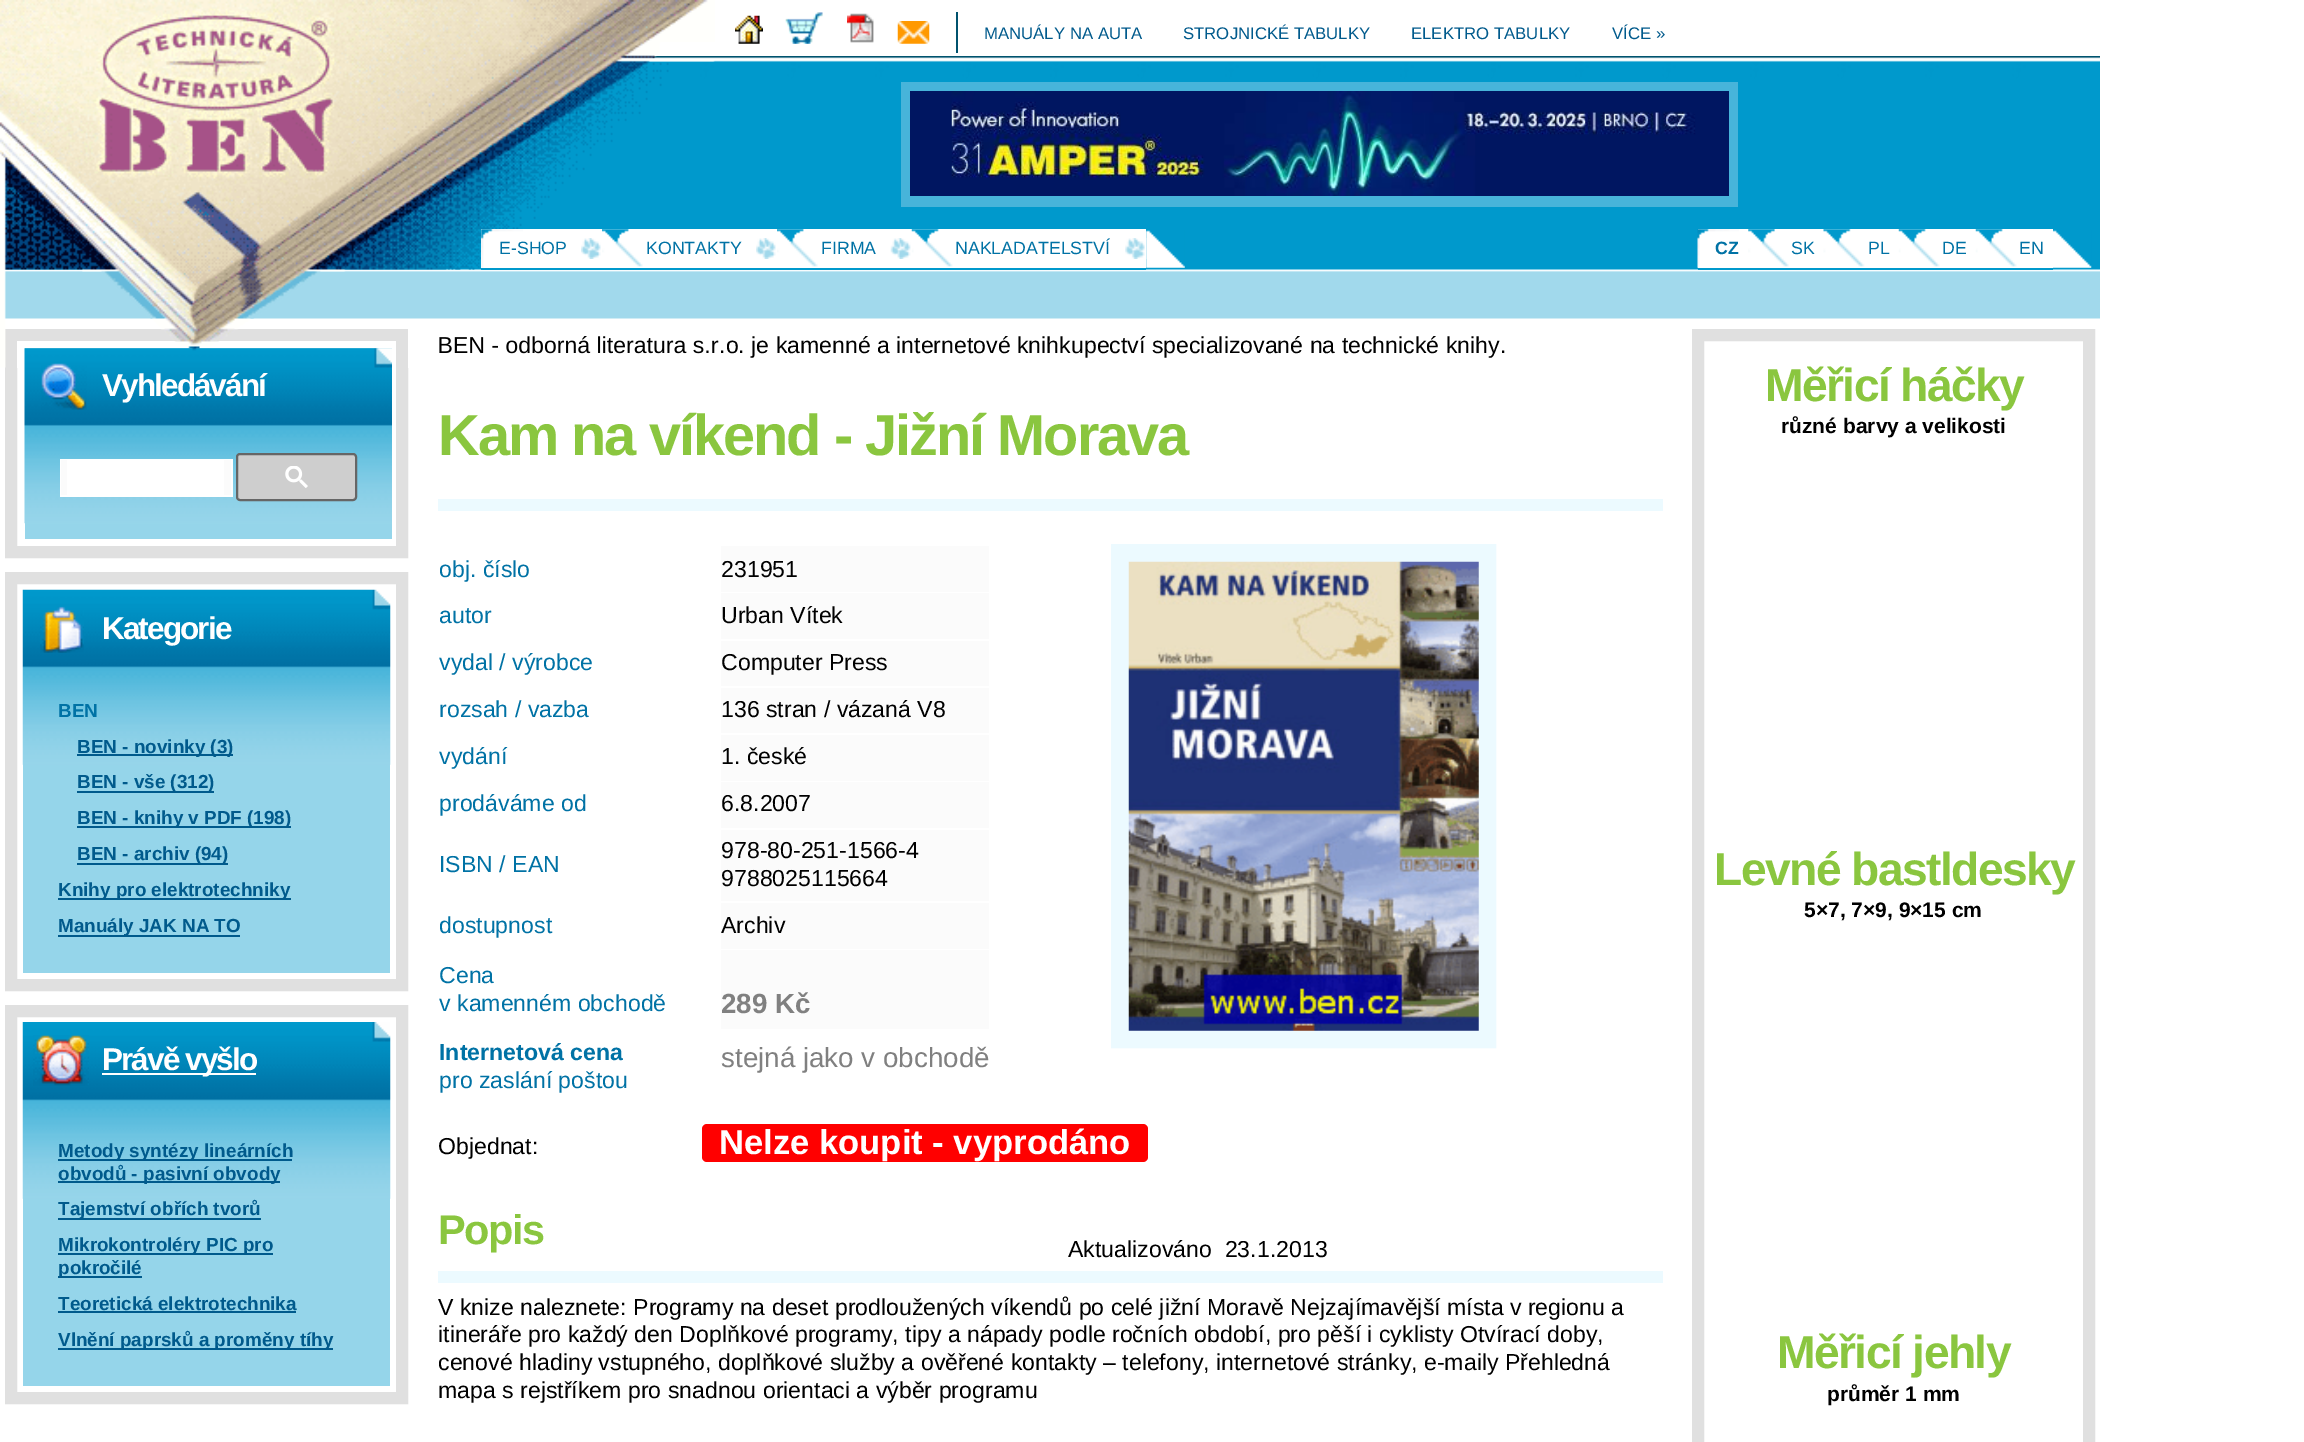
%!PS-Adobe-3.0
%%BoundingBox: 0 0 2304 1442
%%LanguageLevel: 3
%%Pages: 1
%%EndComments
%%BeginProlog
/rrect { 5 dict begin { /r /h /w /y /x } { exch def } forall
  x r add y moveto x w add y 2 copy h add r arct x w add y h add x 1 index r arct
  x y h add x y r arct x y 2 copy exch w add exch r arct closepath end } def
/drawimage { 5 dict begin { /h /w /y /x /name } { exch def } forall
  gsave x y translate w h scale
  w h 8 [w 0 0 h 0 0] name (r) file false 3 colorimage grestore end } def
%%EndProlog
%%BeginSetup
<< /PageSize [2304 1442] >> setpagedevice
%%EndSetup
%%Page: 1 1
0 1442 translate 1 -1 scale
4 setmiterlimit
1 setgray
0 0 2304 1442 rectfill
(images/1.raw) 4 56 2096 263 drawimage
(images/3.raw) 735 15 28 29 drawimage
(images/4.raw) 785 12 38 32 drawimage
(images/5.raw) 847 13 27 30 drawimage
(images/6.raw) 897 21 33 23 drawimage
0 0.322 0.427 setrgbcolor
956 12 2 41 rectfill
0.278 0.706 0.855 setrgbcolor
901 82 837 125 rectfill
(images/7.raw) 910 91 819 105 drawimage
(images/8.raw) 1146 230 39 38 drawimage
(images/17.raw) 2053 230 39 38 drawimage
1 setgray
1698 229 355 39 rectfill
(images/18.raw) 1697 229 42 39 drawimage
0 0.596 0.8 setrgbcolor
1698 269 355 1 rectfill
(images/19.raw) 1748 229 41 38 drawimage
(images/20.raw) 1823 229 42 38 drawimage
(images/15.raw) 1898 229 42 38 drawimage
(images/21.raw) 1975 229 42 38 drawimage
0.878 setgray
12 setlinewidth
11 335 391 217 rectstroke
0.584 0.835 0.918 setrgbcolor
25 348 367 191 rectfill
(images/22.raw) 24 348 368 176 drawimage
1 setgray
60 459 173 38 rectfill
0.984 setgray
61 460 6 35 rectfill
224 460 7 35 rectfill
0.808 setgray
237 454 119 46 3 rrect gsave fill grestore
0.4 setgray
2 setlinewidth
stroke
(images/23.raw) 285 466 23 22 drawimage
(images/24.raw) 41 363 46 47 drawimage
0.878 setgray
12 setlinewidth
11 578 391 407 rectstroke
0.584 0.835 0.918 setrgbcolor
23 764 367 209 rectfill
(images/26.raw) 22 589 369 176 drawimage
(images/25.raw) 40 606 44 47 drawimage
0 0.353 0.549 setrgbcolor
77 754 156 2 rectfill
77 791 137 2 rectfill
77 826 214 2 rectfill
77 863 151 2 rectfill
58 898 233 2 rectfill
58 935 182 2 rectfill
0.878 setgray
11 1011 391 387 rectstroke
0.584 0.835 0.918 setrgbcolor
23 1198 367 188 rectfill
(images/28.raw) 22 1022 369 177 drawimage
(images/27.raw) 33 1035 56 51 drawimage
1 setgray
102 1073 154 2 rectfill
0 0.353 0.549 setrgbcolor
58 1159 234 2 rectfill
58 1181 222 2 rectfill
58 1218 203 2 rectfill
58 1253 215 2 rectfill
58 1276 84 2 rectfill
58 1311 238 2 rectfill
58 1348 275 2 rectfill
0.925 0.98 1 setrgbcolor
438 499 1225 12 rectfill
0.984 setgray
721 546 268 46 rectfill
721 593 268 46 rectfill
721 641 268 45 rectfill
721 688 268 45 rectfill
721 735 268 46 rectfill
721 782 268 46 rectfill
721 830 268 71 rectfill
721 903 268 46 rectfill
721 950 268 79 rectfill
0.925 0.98 1 setrgbcolor
18 setlinewidth
1120 553 367 486 rectstroke
(images/29.raw) 1128 561 351 470 drawimage
1 0 0 setrgbcolor
702 1124 446 38 5 rrect fill
0.925 0.98 1 setrgbcolor
438 1271 1225 12 rectfill
0.878 setgray
12 setlinewidth
1698 335 391 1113 rectstroke
/LiberationSans-Regular [16.75 0 0 -16.75 0 0] selectfont
0 0.353 0.549 setrgbcolor
984 39 moveto (MANUÁLY NA AUTA) show
1183 39 moveto (STROJNICKÉ TABULKY) show
1411 39 moveto (ELEKTRO TABULKY) show
1612 39 moveto (VÍCE ») show
/LiberationSans-Bold [17.75 0 0 -17.75 0 0] selectfont
0 0.447 0.647 setrgbcolor
1715 254 moveto (CZ) show
/LiberationSans-Regular [17.75 0 0 -17.75 0 0] selectfont
1791 254 moveto (SK) show
1868 254 moveto (PL) show
1942 254 moveto (DE) show
2019 254 moveto (EN) show
/LiberationSans-Bold [31.5 0 0 -31.5 0 0] selectfont
1 setgray
102 396 moveto -1.9 0 (Vyhledávání) ashow
102 639 moveto -1.9 0 (Kategorie) ashow
/LiberationSans-Bold [18.9 0 0 -18.9 0 0] selectfont
0 0.447 0.647 setrgbcolor
58 717 moveto (BEN) show
0 0.353 0.549 setrgbcolor
77 753 moveto (BEN - novinky \(3\)) show
77 788 moveto (BEN - vše \(312\)) show
77 824 moveto (BEN - knihy v PDF \(198\)) show
77 860 moveto (BEN - archiv \(94\)) show
58 896 moveto (Knihy pro elektrotechniky) show
58 932 moveto (Manuály JAK NA TO) show
/LiberationSans-Bold [31.5 0 0 -31.5 0 0] selectfont
1 setgray
102 1070 moveto -1.9 0 (Právě vyšlo) ashow
/LiberationSans-Bold [18.9 0 0 -18.9 0 0] selectfont
0 0.353 0.549 setrgbcolor
58 1157 moveto (Metody syntézy lineárních) show
58 1180 moveto (obvodů - pasivní obvody) show
58 1215 moveto (Tajemství obřích tvorů) show
58 1251 moveto (Mikrokontroléry PIC pro) show
58 1274 moveto (pokročilé) show
58 1310 moveto (Teoretická elektrotechnika) show
58 1346 moveto (Vlnění paprsků a proměny tíhy) show
/LiberationSans-Regular [23.1 0 0 -23.1 0 0] selectfont
0 setgray
438 353 moveto (BEN - odborná literatura s.r.o. je kamenné a internetové knihkupectví specializované na technické knihy.) show
(images/2.raw) 0 0 715 368 drawimage
1 setgray
481 229 665 39 rectfill
/LiberationSans-Regular [17.75 0 0 -17.75 0 0] selectfont
0 0.447 0.647 setrgbcolor
955 254 moveto (NAKLADATELSTVÍ) show
(images/16.raw) 1125 238 22 21 drawimage
821 254 moveto (FIRMA) show
(images/14.raw) 890 238 21 21 drawimage
646 254 moveto (KONTAKTY) show
(images/12.raw) 756 238 20 21 drawimage
(images/9.raw) 481 229 42 39 drawimage
499 254 moveto (E-SHOP) show
(images/10.raw) 581 238 20 21 drawimage
(images/15.raw) 911 229 42 38 drawimage
(images/13.raw) 777 229 41 38 drawimage
(images/11.raw) 602 229 41 38 drawimage
0 0.596 0.8 setrgbcolor
481 269 665 1 rectfill
/LiberationSans-Bold [57.75 0 0 -57.75 0 0] selectfont
0.541 0.776 0.247 setrgbcolor
438 455 moveto -2 0 (Kam na víkend - Jižní Morava) ashow
/LiberationSans-Regular [23.1 0 0 -23.1 0 0] selectfont
0 0.447 0.647 setrgbcolor
439 577 moveto (obj. číslo) show
0 setgray
721 577 moveto (231951) show
0 0.447 0.647 setrgbcolor
439 623 moveto (autor) show
0 setgray
721 623 moveto (Urban Vítek) show
0 0.447 0.647 setrgbcolor
439 670 moveto (vydal / výrobce) show
0 setgray
721 670 moveto (Computer Press) show
0 0.447 0.647 setrgbcolor
439 717 moveto (rozsah / vazba) show
0 setgray
721 717 moveto (136 stran / vázaná V8) show
0 0.447 0.647 setrgbcolor
439 764 moveto (vydání) show
0 setgray
721 764 moveto (1. české) show
0 0.447 0.647 setrgbcolor
439 811 moveto (prodáváme od) show
0 setgray
721 811 moveto (6.8.2007) show
0 0.447 0.647 setrgbcolor
439 872 moveto (ISBN / EAN) show
0 setgray
721 858 moveto (978-80-251-1566-4) show
721 886 moveto (9788025115664) show
0 0.447 0.647 setrgbcolor
439 933 moveto (dostupnost) show
0 setgray
721 933 moveto (Archiv) show
0 0.447 0.647 setrgbcolor
439 983 moveto (Cena) show
439 1011 moveto (v kamenném obchodě) show
/LiberationSans-Bold [27.75 0 0 -27.75 0 0] selectfont
0.502 setgray
721 1013 moveto (289 Kč) show
/LiberationSans-Bold [23.1 0 0 -23.1 0 0] selectfont
0 0.447 0.647 setrgbcolor
439 1060 moveto (Internetová cena) show
/LiberationSans-Regular [23.1 0 0 -23.1 0 0] selectfont
439 1088 moveto (pro zaslání poštou) show
/LiberationSans-Regular [27.75 0 0 -27.75 0 0] selectfont
0.502 setgray
721 1067 moveto (stejná jako v obchodě) show
/LiberationSans-Regular [23.1 0 0 -23.1 0 0] selectfont
0 setgray
438 1154 moveto (Objednat:) show
/LiberationSans-Bold [34.6 0 0 -34.6 0 0] selectfont
1 setgray
719 1154 moveto (Nelze koupit - vyprodáno) show
/LiberationSans-Bold [41.5 0 0 -41.5 0 0] selectfont
0.541 0.776 0.247 setrgbcolor
438 1244 moveto -1.5 0 (Popis) ashow
/LiberationSans-Regular [23.1 0 0 -23.1 0 0] selectfont
0 setgray
1068 1257 moveto (Aktualizováno  23.1.2013) show
438 1315 moveto (V knize naleznete: Programy na deset prodloužených víkendů po celé jižní Moravě Nejzajímavější místa v regionu a) show
438 1342 moveto (itineráře pro každý den Doplňkové programy, tipy a nápady podle ročních období, pro pěší i cyklisty Otvírací doby,) show
438 1370 moveto (cenové hladiny vstupného, doplňkové služby a ověřené kontakty – telefony, internetové stránky, e-maily Přehledná) show
438 1398 moveto (mapa s rejstříkem pro snadnou orientaci a výběr programu) show
/LiberationSans-Bold [46.25 0 0 -46.25 0 0] selectfont
0.541 0.776 0.247 setrgbcolor
1765 401 moveto -1.6 0 (Měřicí háčky) ashow
/LiberationSans-Bold [21 0 0 -21 0 0] selectfont
0 setgray
1781 433 moveto (různé barvy a velikosti) show
/LiberationSans-Bold [46.25 0 0 -46.25 0 0] selectfont
0.541 0.776 0.247 setrgbcolor
1714 885 moveto -1.6 0 (Levné bastldesky) ashow
/LiberationSans-Bold [21 0 0 -21 0 0] selectfont
0 setgray
1804 917 moveto (5×7, 7×9, 9×15 cm) show
/LiberationSans-Bold [46.25 0 0 -46.25 0 0] selectfont
0.541 0.776 0.247 setrgbcolor
1777 1368 moveto -1.6 0 (Měřicí jehly) ashow
/LiberationSans-Bold [21 0 0 -21 0 0] selectfont
0 setgray
1827 1401 moveto (průměr 1 mm) show
showpage
%%EOF
